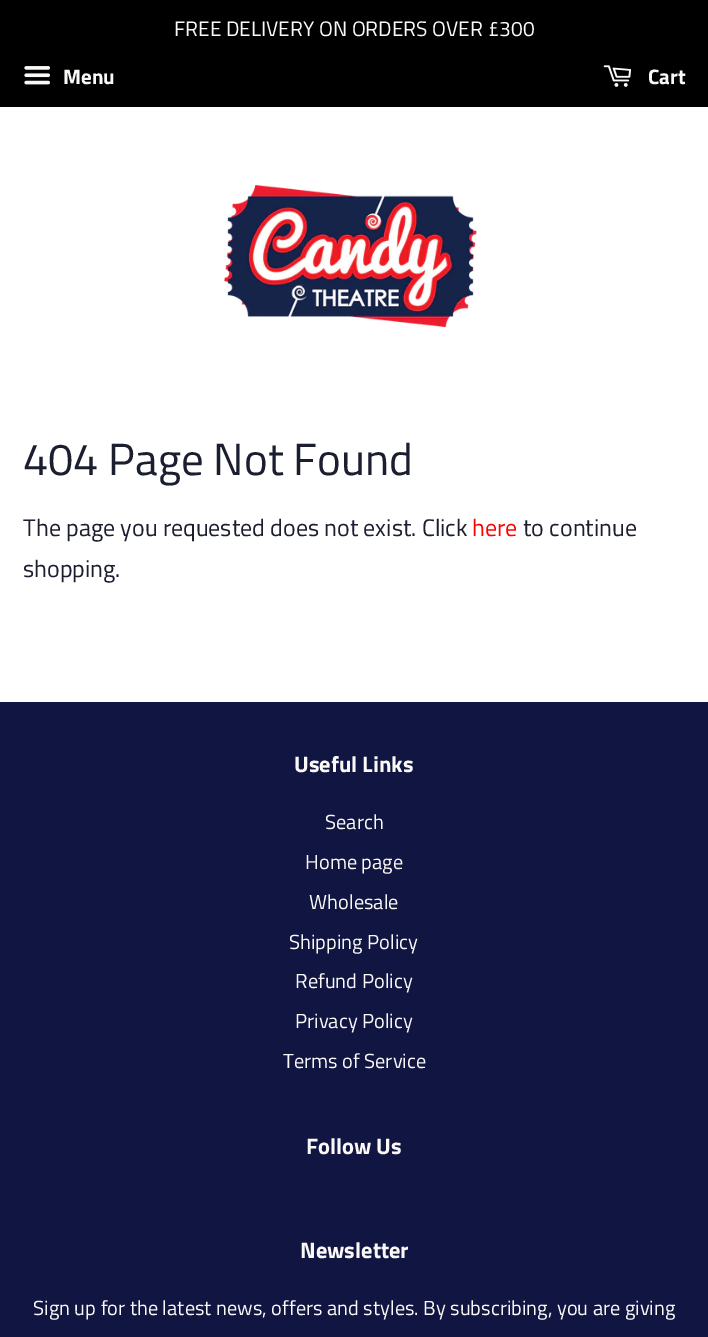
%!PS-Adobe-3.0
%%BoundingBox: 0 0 708 1337
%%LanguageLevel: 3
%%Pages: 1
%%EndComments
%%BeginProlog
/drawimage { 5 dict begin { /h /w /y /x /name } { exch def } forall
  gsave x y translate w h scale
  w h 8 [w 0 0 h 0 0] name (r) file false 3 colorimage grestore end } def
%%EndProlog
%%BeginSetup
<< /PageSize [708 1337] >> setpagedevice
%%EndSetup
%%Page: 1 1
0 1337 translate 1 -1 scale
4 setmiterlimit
1 setgray
0 0 708 1337 rectfill
0 setgray
0 0 708 107 rectfill
(images/1.raw) 24 66 26 19 drawimage
(images/2.raw) 603 65 29 22 drawimage
(images/3.raw) 224 185 253 143 drawimage
0.067 0.082 0.255 setrgbcolor
0 702 708 635 rectfill
/TitilliumWeb-Regular [21 0 0 -21 0 0] selectfont
0.98 0.976 0.969 setrgbcolor
174 36 moveto (FREE DELIVERY ON ORDERS OVER £300) show
/TitilliumWeb-Bold [21 0 0 -21 0 0] selectfont
63 84 moveto (Menu) show
648 84 moveto (Cart) show
/TitilliumWeb-Regular [45 0 0 -45 0 0] selectfont
0.106 0.118 0.184 setrgbcolor
23 475 moveto (404 Page Not Found) show
/TitilliumWeb-Regular [24 0 0 -24 0 0] selectfont
23 536 moveto (The page you requested does not exist. Click) show
1 0 0 setrgbcolor
472 536 moveto (here) show
0.106 0.118 0.184 setrgbcolor
523 536 moveto (to continue) show
23 577 moveto (shopping.) show
/TitilliumWeb-Bold [22.5 0 0 -22.5 0 0] selectfont
0.98 0.976 0.969 setrgbcolor
294 772 moveto (Useful Links) show
/TitilliumWeb-Regular [20.4 0 0 -20.4 0 0] selectfont
325 829 moveto (Search) show
305 869 moveto (Home page) show
309 909 moveto (Wholesale) show
289 949 moveto (Shipping Policy) show
295 988 moveto (Refund Policy) show
295 1028 moveto (Privacy Policy) show
283 1068 moveto (Terms of Service) show
/TitilliumWeb-Bold [22.5 0 0 -22.5 0 0] selectfont
306 1154 moveto (Follow Us) show
300 1258 moveto (Newsletter) show
/TitilliumWeb-Regular [20.4 0 0 -20.4 0 0] selectfont
33 1315 moveto (Sign up for the latest news, offers and styles. By subscribing, you are giving) show
showpage
%%EOF
